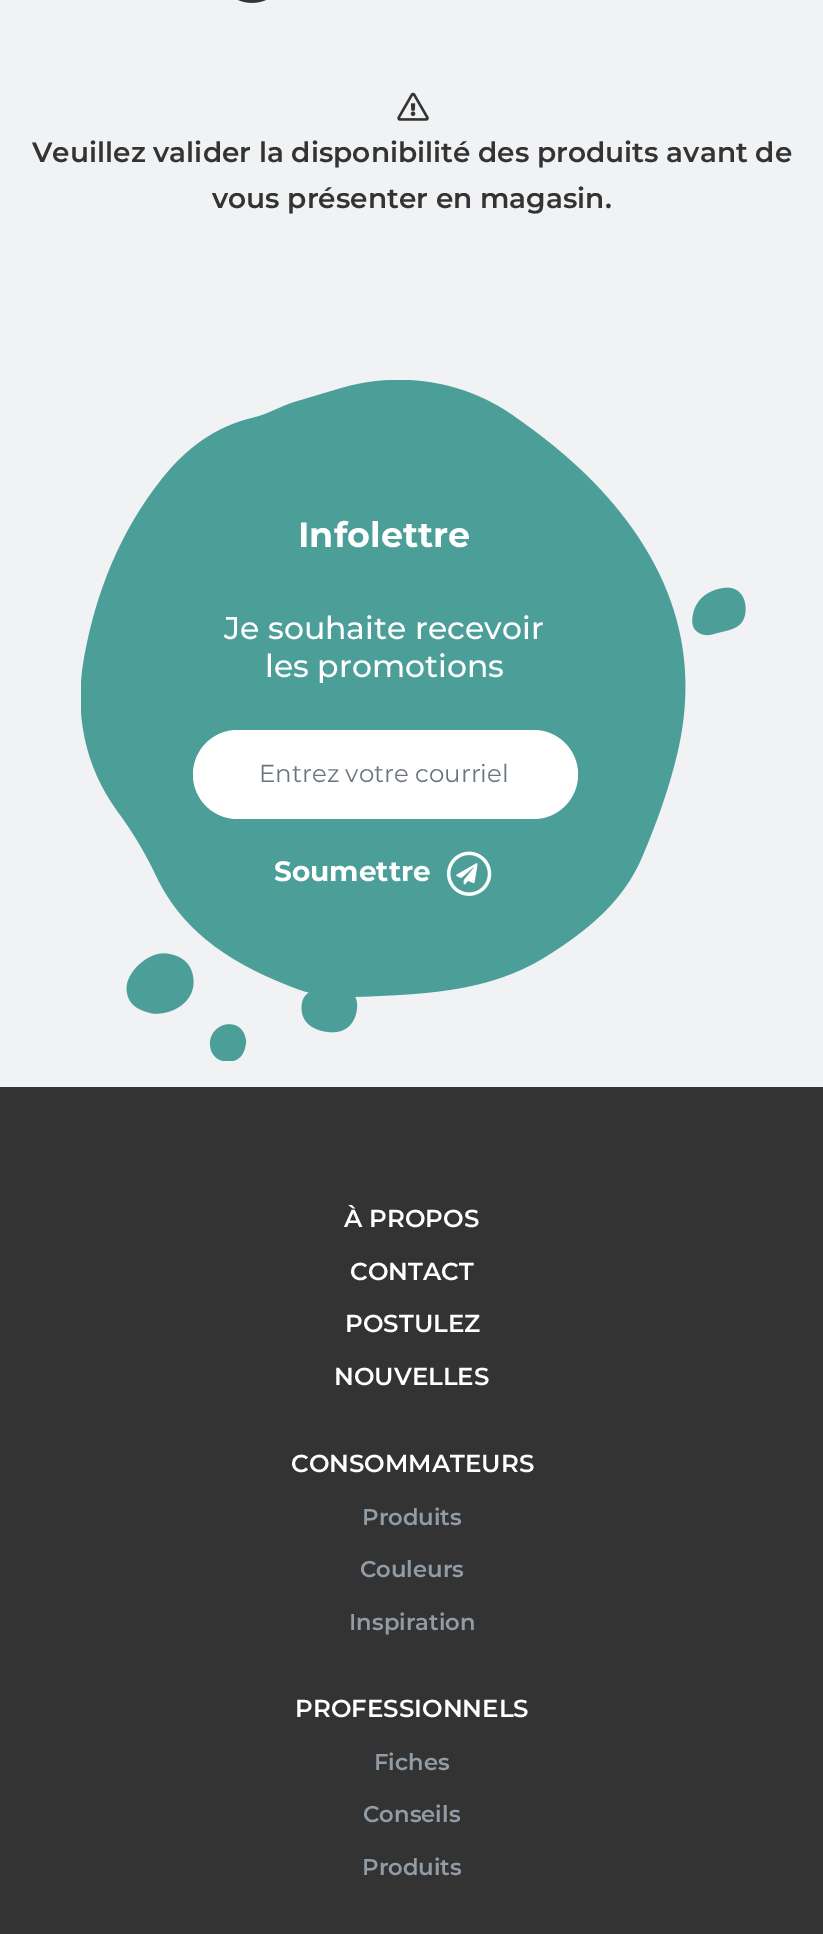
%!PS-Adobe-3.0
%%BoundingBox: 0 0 823 1934
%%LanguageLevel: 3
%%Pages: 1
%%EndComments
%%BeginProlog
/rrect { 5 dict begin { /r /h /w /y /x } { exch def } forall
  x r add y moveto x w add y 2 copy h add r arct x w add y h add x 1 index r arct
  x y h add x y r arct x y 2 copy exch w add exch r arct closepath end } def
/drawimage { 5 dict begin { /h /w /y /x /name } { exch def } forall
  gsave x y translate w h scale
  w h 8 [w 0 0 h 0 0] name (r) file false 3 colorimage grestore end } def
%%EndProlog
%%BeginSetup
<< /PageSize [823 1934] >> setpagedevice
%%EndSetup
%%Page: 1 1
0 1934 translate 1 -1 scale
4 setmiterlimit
0.941 0.949 0.957 setrgbcolor
0 0 823 1934 rectfill
(images/1.raw) 238 0 28 3 drawimage
(images/2.raw) 397 92 32 29 drawimage
(images/3.raw) 81 380 665 681 drawimage
1 setgray
193 730 385 89 44.5 rrect fill
(images/4.raw) 446 851 46 45 drawimage
0.2 setgray
0 1087 823 847 rectfill
/Montserrat-SemiBold [28 0 0 -28 0 0] selectfont
32 162 moveto (Veuillez valider la disponibilité des produits avant de) show
212 208 moveto (vous présenter en magasin.) show
/Montserrat-Bold [35 0 0 -35 0 0] selectfont
1 setgray
298 547 moveto (Infolettre) show
/Montserrat-Medium [31.5 0 0 -31.5 0 0] selectfont
224 639 moveto (Je souhaite recevoir) show
265 677 moveto (les promotions) show
/Montserrat-Regular [24.5 0 0 -24.5 0 0] selectfont
0.424 0.459 0.49 setrgbcolor
259 782 moveto (Entrez votre courriel) show
/Montserrat-Bold [28 0 0 -28 0 0] selectfont
1 setgray
274 881 moveto (Soumettre) show
/Montserrat-SemiBold [24.5 0 0 -24.5 0 0] selectfont
344 1227 moveto (À PROPOS) show
350 1280 moveto (CONTACT) show
345 1332 moveto (POSTULEZ) show
334 1385 moveto (NOUVELLES) show
291 1472 moveto (CONSOMMATEURS) show
/Montserrat-SemiBold [22.75 0 0 -22.75 0 0] selectfont
0.569 0.612 0.651 setrgbcolor
362 1525 moveto (Produits) show
360 1577 moveto (Couleurs) show
349 1630 moveto (Inspiration) show
/Montserrat-SemiBold [24.5 0 0 -24.5 0 0] selectfont
1 setgray
295 1717 moveto (PROFESSIONNELS) show
/Montserrat-SemiBold [22.75 0 0 -22.75 0 0] selectfont
0.569 0.612 0.651 setrgbcolor
374 1770 moveto (Fiches) show
363 1822 moveto (Conseils) show
362 1875 moveto (Produits) show
showpage
%%EOF
